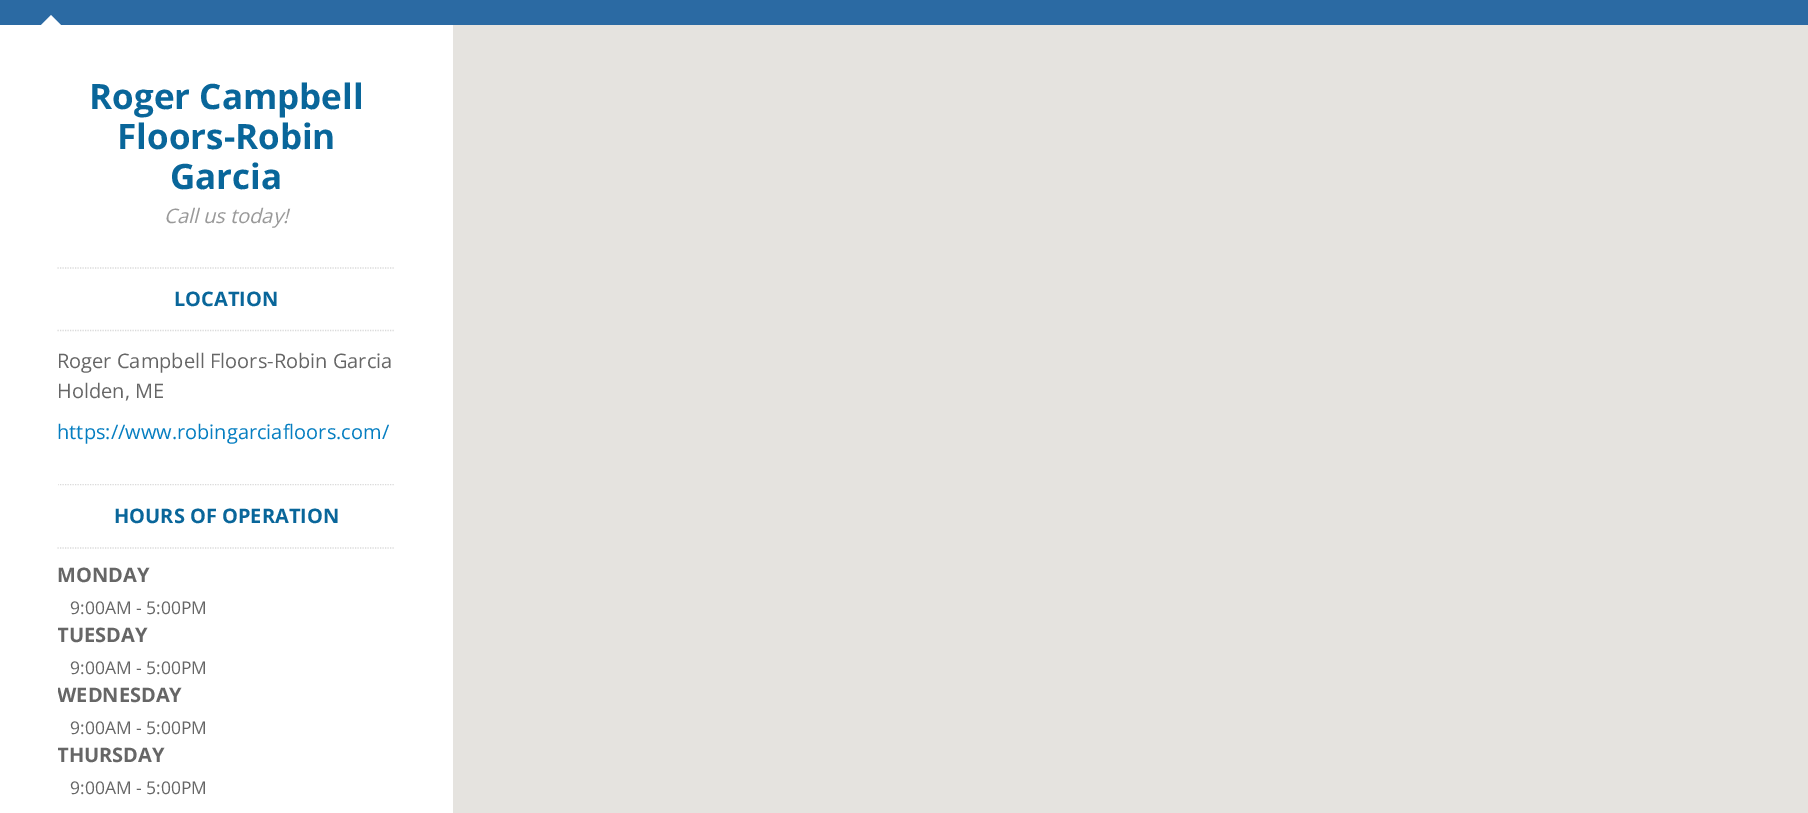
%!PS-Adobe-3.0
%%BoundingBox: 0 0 1808 813
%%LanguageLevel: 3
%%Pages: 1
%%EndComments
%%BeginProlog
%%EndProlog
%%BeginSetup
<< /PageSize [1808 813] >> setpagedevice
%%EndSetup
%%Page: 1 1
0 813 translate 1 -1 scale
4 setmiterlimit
1 setgray
0 0 1808 813 rectfill
0.169 0.416 0.639 setrgbcolor
0 0 1808 25 rectfill
1 setgray
newpath 61 25 moveto 41 25 lineto 51 15 lineto closepath fill
0.855 setgray
1.2 setlinewidth
[1.25 1.25] 0 setdash
newpath 57.5 268 moveto 395 268 lineto stroke
newpath 57.5 330.5 moveto 395 330.5 lineto stroke
gsave
58 484 337 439 rectclip
newpath 57.5 484.5 moveto 395 484.5 lineto stroke
grestore
newpath 57.5 548 moveto 395 548 lineto stroke
0.898 0.89 0.875 setrgbcolor
453 25 1355 788 rectfill
/OpenSans-Bold [35 0 0 -35 0 0] selectfont
0.035 0.4 0.604 setrgbcolor
89 109 moveto (Roger Campbell) show
117 149 moveto (Floors-Robin) show
170 189 moveto (Garcia) show
/OpenSans-Italic [20 0 0 -20 0 0] selectfont
0.6 setgray
164 223 moveto (Call us today!) show
/OpenSans-Bold [20 0 0 -20 0 0] selectfont
0.035 0.4 0.604 setrgbcolor
174 306 moveto (LOCATION) show
/OpenSans-Regular [20 0 0 -20 0 0] selectfont
0.4 setgray
57 368 moveto (Roger Campbell Floors-Robin Garcia) show
57 398 moveto (Holden, ME) show
0.02 0.494 0.757 setrgbcolor
57 439 moveto (https://www.robingarciafloors.com/) show
/OpenSans-Bold [20 0 0 -20 0 0] selectfont
0.035 0.4 0.604 setrgbcolor
114 523 moveto (HOURS OF OPERATION) show
0.4 setgray
57 582 moveto (MONDAY) show
/OpenSans-Regular [17.5 0 0 -17.5 0 0] selectfont
70 614 moveto (9:00AM - 5:00PM) show
gsave
58 484 337 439 rectclip
/OpenSans-Bold [20 0 0 -20 0 0] selectfont
57 642 moveto (TUESDAY) show
grestore
70 674 moveto (9:00AM - 5:00PM) show
gsave
58 484 337 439 rectclip
/OpenSans-Bold [20 0 0 -20 0 0] selectfont
57 702 moveto (WEDNESDAY) show
grestore
70 734 moveto (9:00AM - 5:00PM) show
gsave
58 484 337 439 rectclip
/OpenSans-Bold [20 0 0 -20 0 0] selectfont
57 762 moveto (THURSDAY) show
grestore
70 794 moveto (9:00AM - 5:00PM) show
showpage
%%EOF
